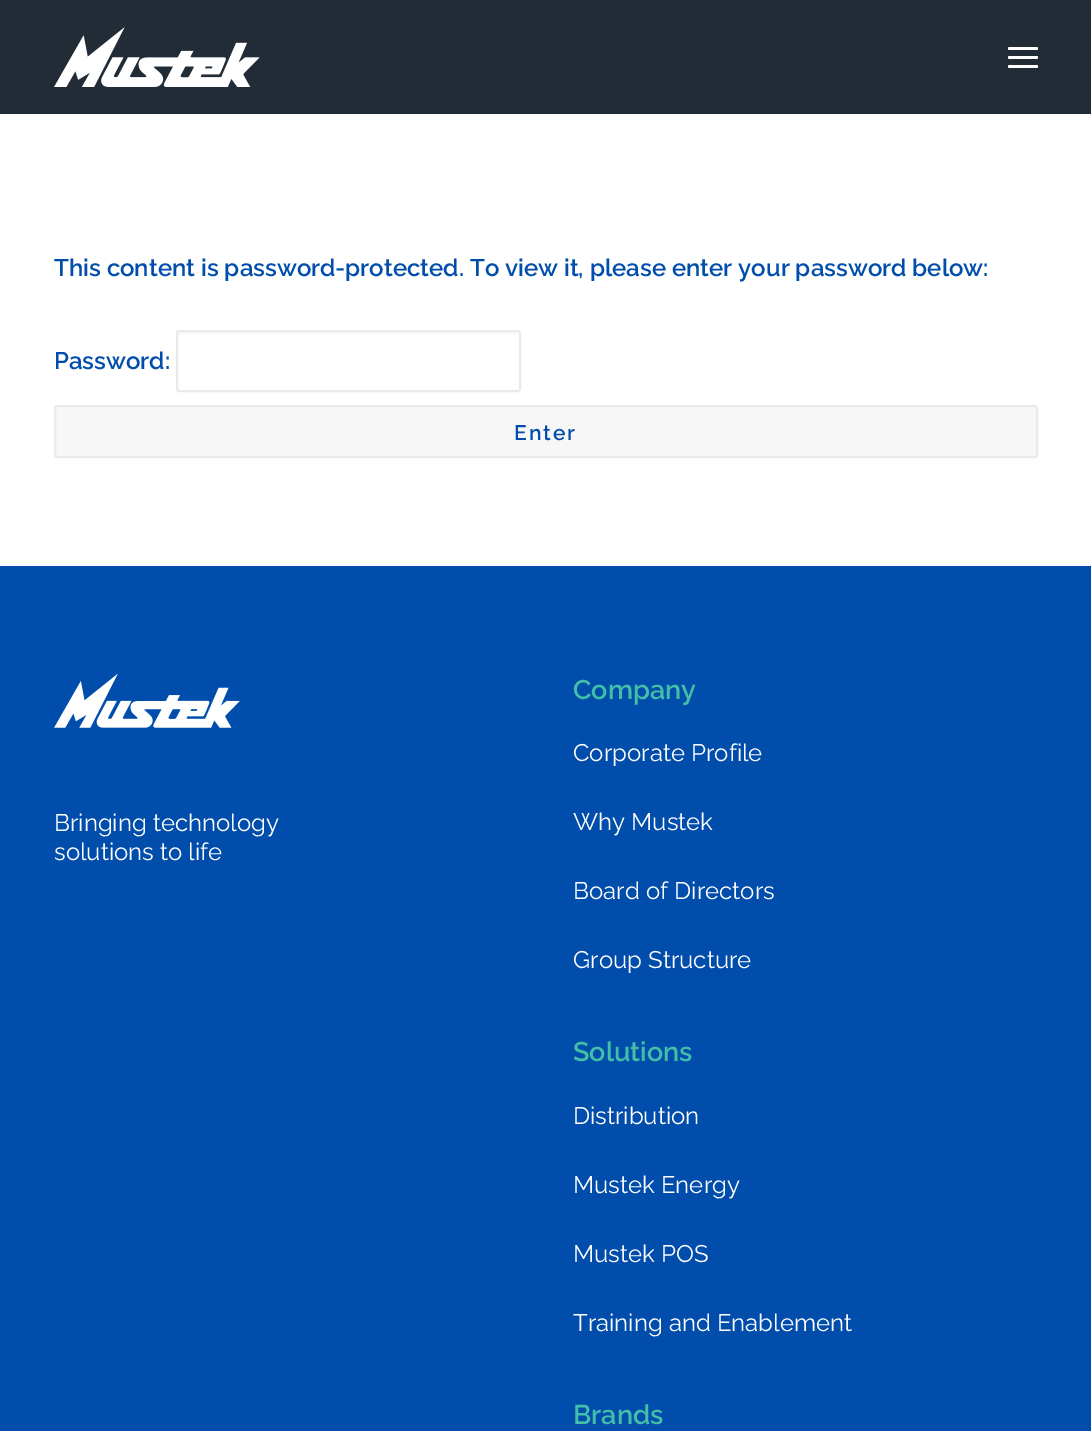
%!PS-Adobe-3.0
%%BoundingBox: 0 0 1091 1431
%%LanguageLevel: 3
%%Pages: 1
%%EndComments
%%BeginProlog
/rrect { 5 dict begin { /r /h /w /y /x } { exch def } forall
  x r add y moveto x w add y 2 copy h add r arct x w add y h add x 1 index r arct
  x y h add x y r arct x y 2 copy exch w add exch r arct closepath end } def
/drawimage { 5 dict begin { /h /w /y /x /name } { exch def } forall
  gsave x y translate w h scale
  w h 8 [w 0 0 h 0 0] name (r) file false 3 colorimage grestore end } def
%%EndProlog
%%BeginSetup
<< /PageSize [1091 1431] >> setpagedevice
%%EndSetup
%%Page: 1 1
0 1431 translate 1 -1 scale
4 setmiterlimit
1 setgray
0 0 1091 1431 rectfill
0.129 0.173 0.212 setrgbcolor
0 0 1091 114 rectfill
(images/1.raw) 54 27 206 60 drawimage
1 setgray
1008 56 30 3 1.5 rrect fill
1008 47 30 3 1.5 rrect fill
1008 65 30 3 1.5 rrect fill
0.976 setgray
newpath 178 334 moveto 518 334 lineto 519 336 lineto 519 334 lineto 519 333 518 332 518 332 curveto 178 332 lineto 178 332 177 333 177 334 curveto 177 336 lineto closepath fill
0.918 setgray
2 setlinewidth
177 331 343 60 2 rrect stroke
0.969 setgray
55 406 982 51 2 rrect gsave fill grestore
0.918 setgray
stroke
0 0.302 0.671 setrgbcolor
0 566 1091 865 rectfill
(images/2.raw) 54 674 186 54 drawimage
/Raleway-SemiBold [24 0 0 -24 0 0] selectfont
54 276 moveto (This content is password-protected. To view it, please enter your password below:) show
54 369 moveto (Password:) show
/Raleway-SemiBold [21 0 0 -21 0 0] selectfont
514 440 moveto 2 0 (Enter) ashow
/Raleway-Regular [24 0 0 -24 0 0] selectfont
1 setgray
54 831 moveto (Bringing technology) show
54 860 moveto (solutions to life) show
/Raleway-SemiBold [27 0 0 -27 0 0] selectfont
0.263 0.745 0.663 setrgbcolor
573 699 moveto (Company) show
/Raleway-Regular [24 0 0 -24 0 0] selectfont
1 setgray
573 761 moveto (Corporate Profile) show
573 830 moveto (Why Mustek) show
573 899 moveto (Board of Directors) show
573 968 moveto (Group Structure) show
/Raleway-SemiBold [27 0 0 -27 0 0] selectfont
0.263 0.745 0.663 setrgbcolor
573 1061 moveto (Solutions) show
/Raleway-Regular [24 0 0 -24 0 0] selectfont
1 setgray
573 1124 moveto (Distribution) show
573 1193 moveto (Mustek Energy) show
573 1262 moveto (Mustek POS) show
573 1331 moveto (Training and Enablement) show
/Raleway-SemiBold [27 0 0 -27 0 0] selectfont
0.263 0.745 0.663 setrgbcolor
573 1424 moveto (Brands) show
showpage
%%EOF
